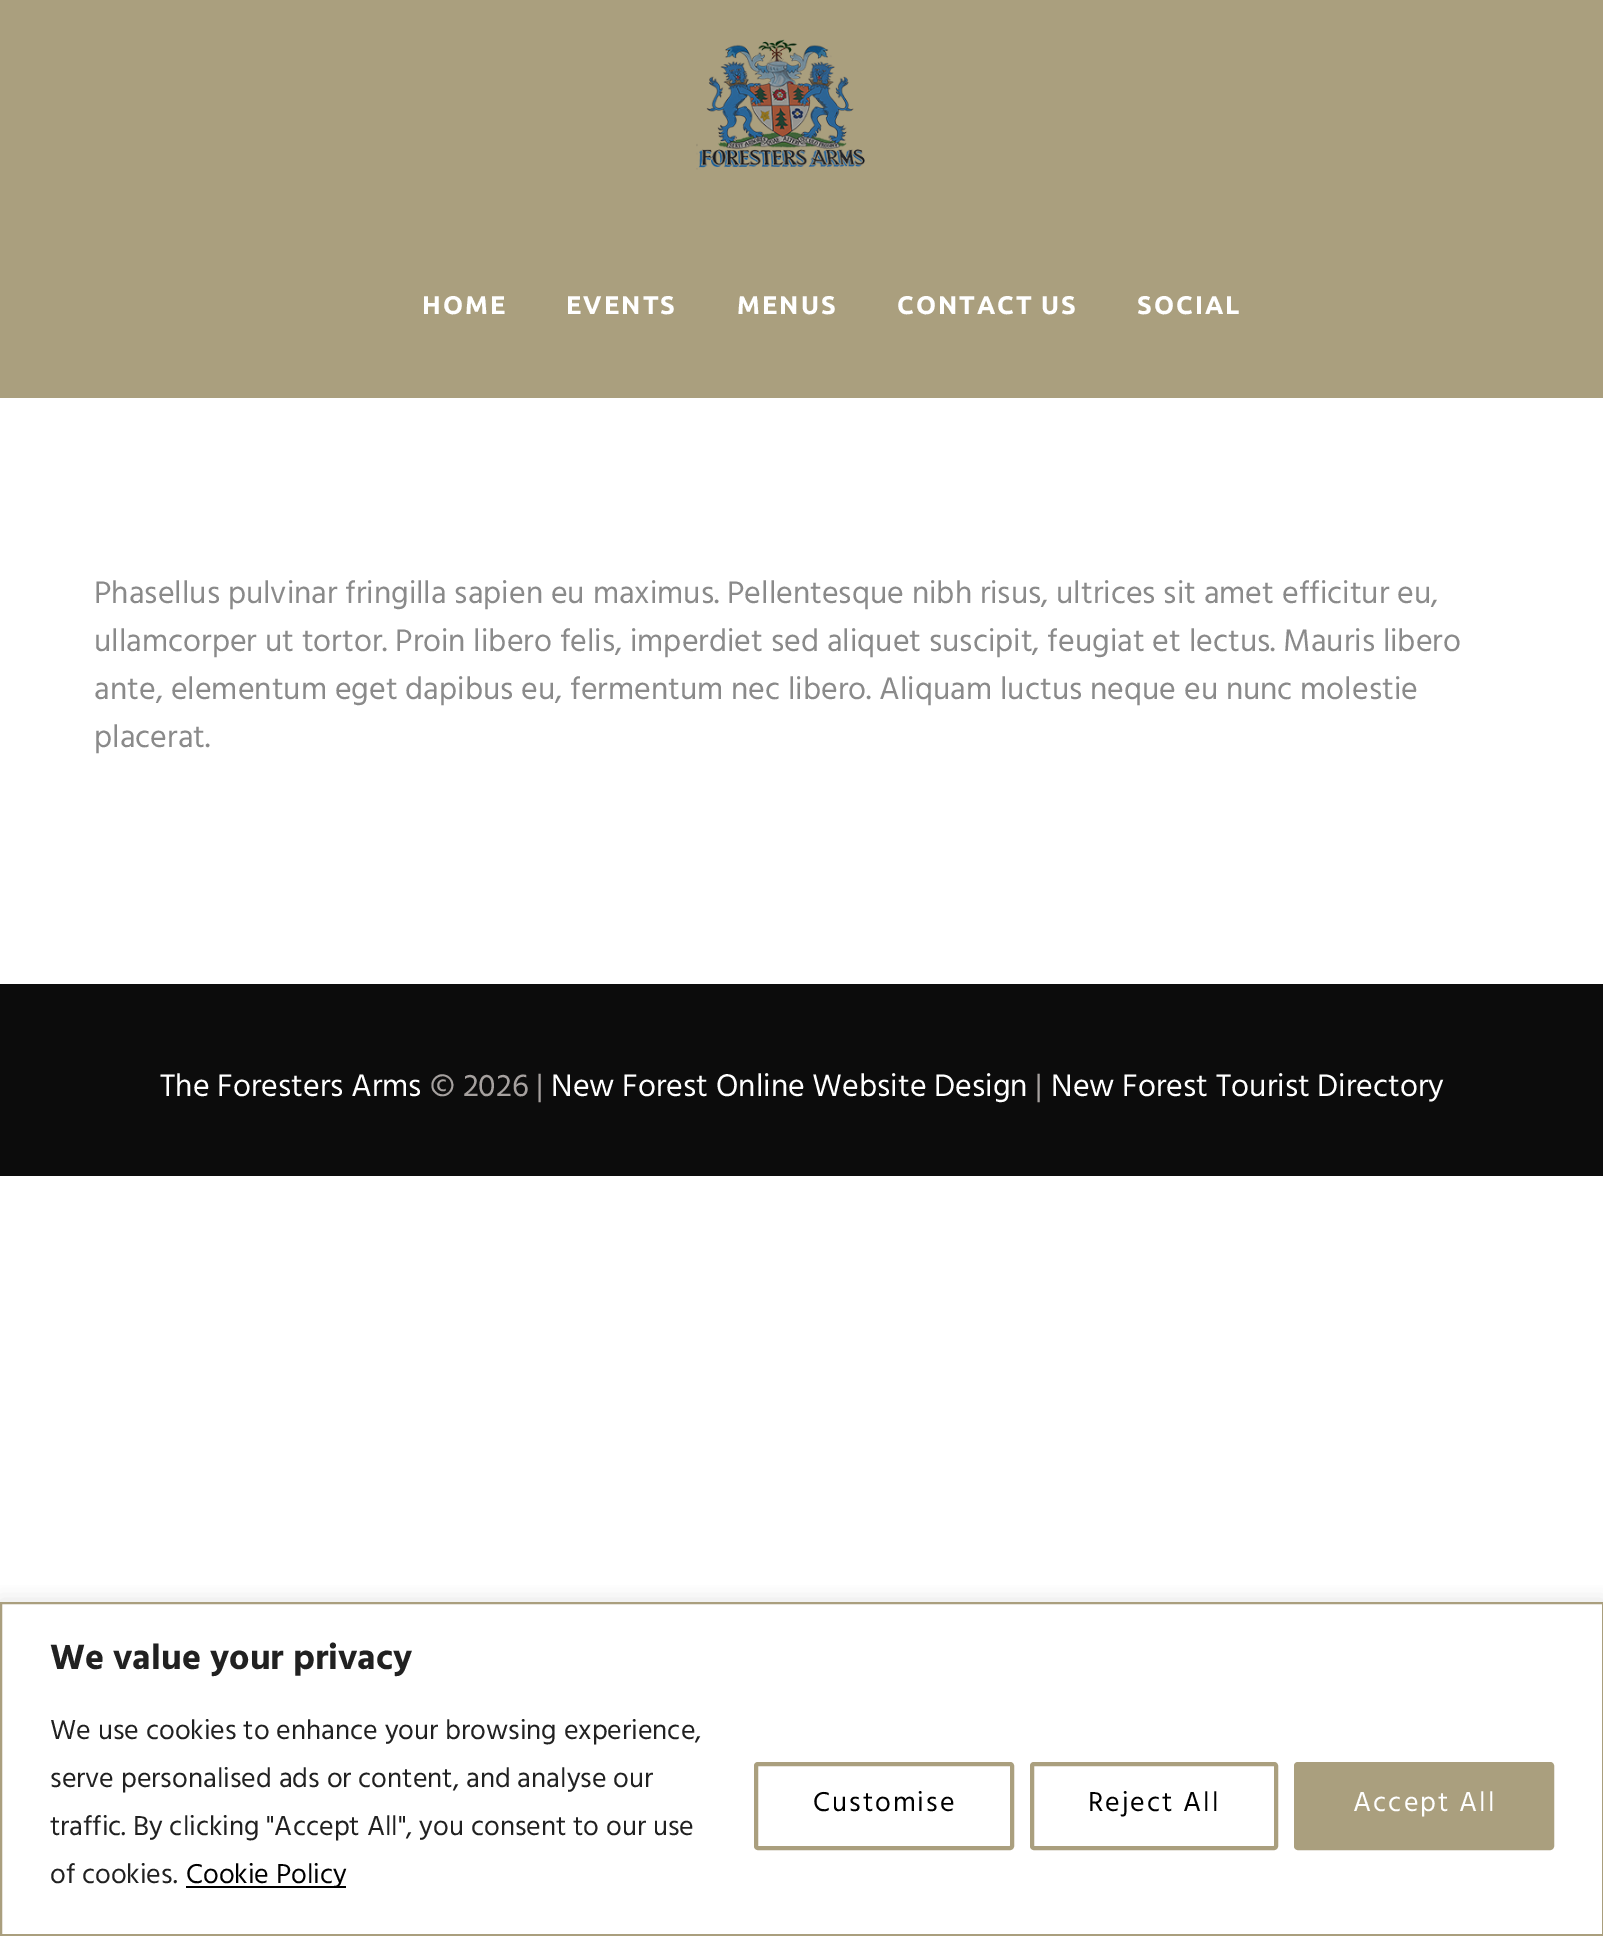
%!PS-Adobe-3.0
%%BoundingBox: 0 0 1603 1936
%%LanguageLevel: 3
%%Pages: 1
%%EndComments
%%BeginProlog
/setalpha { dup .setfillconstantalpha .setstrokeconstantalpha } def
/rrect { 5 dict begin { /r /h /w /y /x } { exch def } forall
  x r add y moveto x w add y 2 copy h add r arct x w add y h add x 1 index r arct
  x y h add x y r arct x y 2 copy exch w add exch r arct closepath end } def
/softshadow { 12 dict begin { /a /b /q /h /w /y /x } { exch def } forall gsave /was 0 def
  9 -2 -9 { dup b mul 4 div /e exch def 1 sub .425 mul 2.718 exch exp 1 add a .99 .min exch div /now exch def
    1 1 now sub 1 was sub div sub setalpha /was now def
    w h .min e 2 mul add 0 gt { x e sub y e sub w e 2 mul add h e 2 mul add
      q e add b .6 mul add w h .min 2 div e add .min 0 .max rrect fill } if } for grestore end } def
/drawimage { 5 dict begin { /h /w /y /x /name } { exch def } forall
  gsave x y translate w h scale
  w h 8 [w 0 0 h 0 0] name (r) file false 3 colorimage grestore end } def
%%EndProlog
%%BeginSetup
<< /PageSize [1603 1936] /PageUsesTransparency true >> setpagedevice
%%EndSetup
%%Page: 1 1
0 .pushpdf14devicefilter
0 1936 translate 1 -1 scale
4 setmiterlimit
1 setgray
0 0 1603 1936 rectfill
0.667 0.624 0.494 setrgbcolor
0 0 1603 398 rectfill
(images/1.raw) 696 39 169 131 drawimage
0.047 setgray
0 984 1603 192 rectfill
gsave
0 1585 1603 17 rectclip
0.675 0.671 0.671 setrgbcolor
0 1600 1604 334 0 10 0.3 softshadow
grestore
0.667 0.624 0.494 setrgbcolor
2 setlinewidth
1 1603 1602 332 rectstroke
0 setgray
186 1886 160 2 rectfill
0.667 0.624 0.494 setrgbcolor
4 setlinewidth
756 1764 256 84 2 rrect stroke
1032 1764 244 84 2 rrect stroke
1296 1764 256 84 2 rrect gsave fill grestore
stroke
/Ubuntu-Bold [25.5 0 0 -25.5 0 0] selectfont
1 setgray
422 314 moveto 2 0 (HOME) ashow
566 314 moveto 2 0 (EVENTS) ashow
737 314 moveto 2 0 (MENUS) ashow
897 314 moveto 2 0 (CONTACT US) ashow
1137 314 moveto 2 0 (SOCIAL) ashow
/Hind-Regular [32 0 0 -32 0 0] selectfont
0.541 setgray
94 603 moveto (Phasellus pulvinar fringilla sapien eu maximus. Pellentesque nibh risus, ultrices sit amet efficitur eu,) show
94 651 moveto (ullamcorper ut tortor. Proin libero felis, imperdiet sed aliquet suscipit, feugiat et lectus. Mauris libero) show
94 699 moveto (ante, elementum eget dapibus eu, fermentum nec libero. Aliquam luctus neque eu nunc molestie) show
94 747 moveto (placerat.) show
1 setgray
160 1096 moveto (The Foresters Arms) show
0.651 0.631 0.624 setrgbcolor
430 1096 moveto (© 2026 |) show
1 setgray
551 1096 moveto (New Forest Online Website Design) show
0.651 0.631 0.624 setrgbcolor
1035 1096 moveto (|) show
1 setgray
1051 1096 moveto (New Forest Tourist Directory) show
/Hind-Bold [36 0 0 -36 0 0] selectfont
0.129 setgray
50 1669 moveto (We value your privacy) show
/Hind-Regular [28 0 0 -28 0 0] selectfont
50 1739 moveto (We use cookies to enhance your browsing experience,) show
50 1787 moveto (serve personalised ads or content, and analyse our) show
50 1835 moveto (traffic. By clicking "Accept All", you consent to our use) show
50 1883 moveto (of cookies.) show
0 setgray
186 1883 moveto (Cookie Policy) show
813 1811 moveto 2 0 (Customise) ashow
1088 1811 moveto 2 0 (Reject All) ashow
1 setgray
1353 1811 moveto 2 0 (Accept All) ashow
.poppdf14devicefilter showpage
%%EOF
